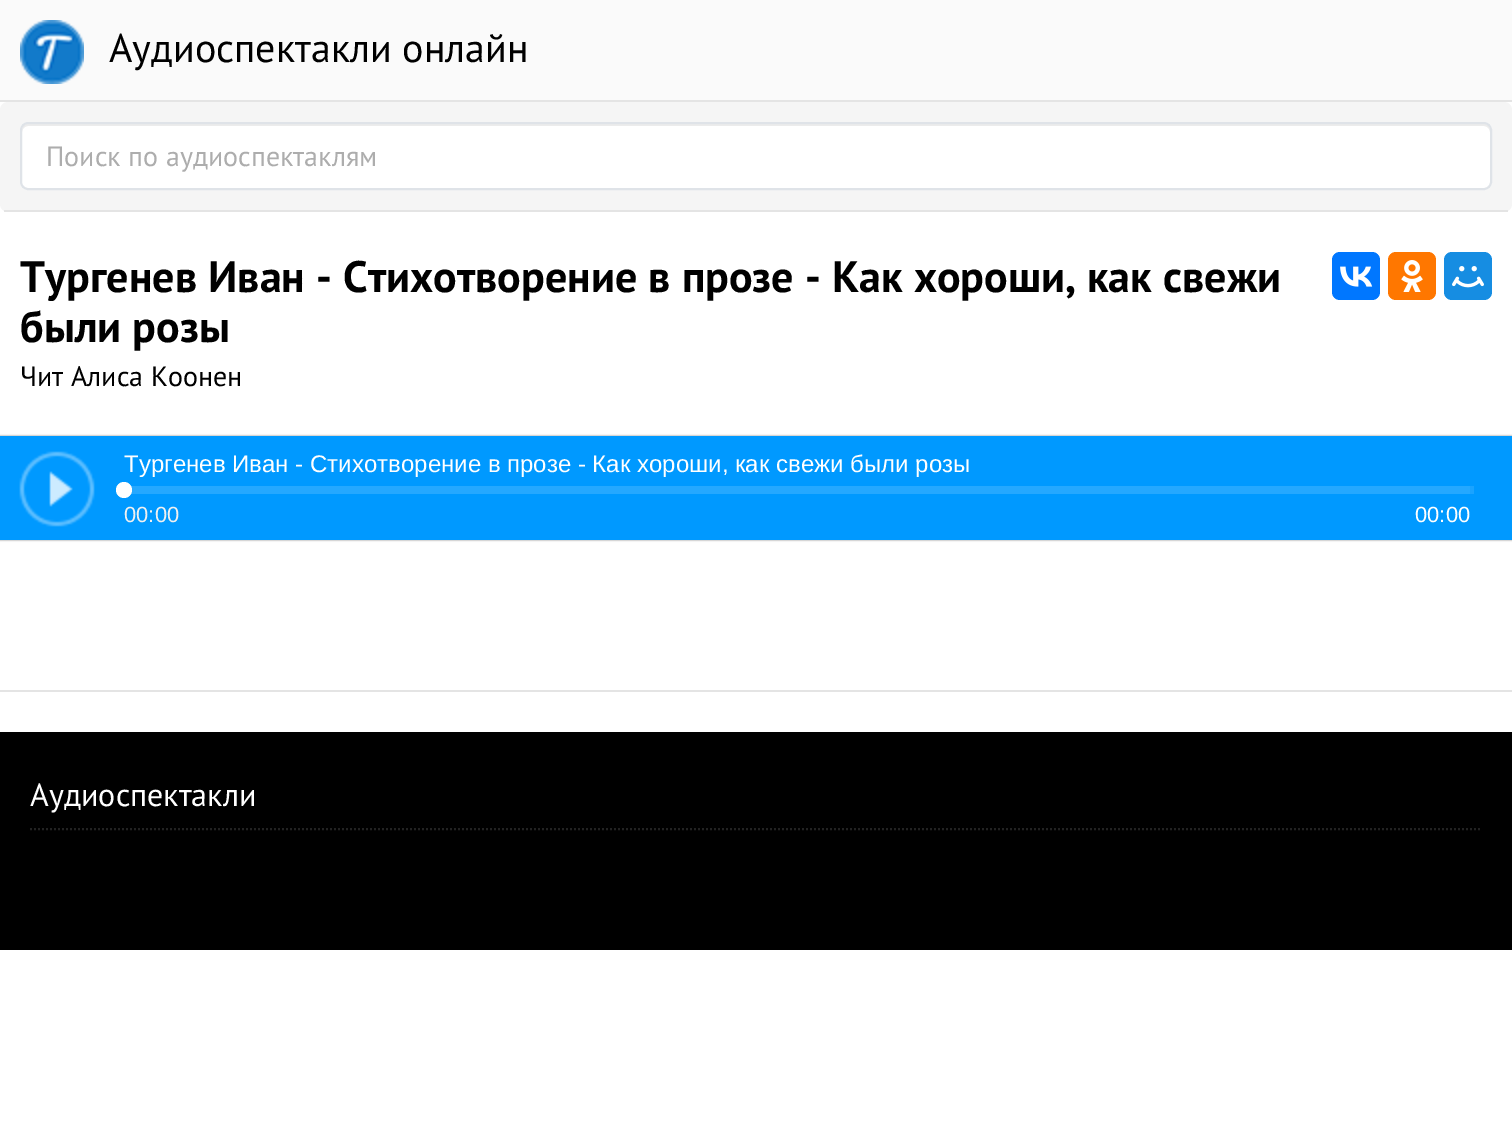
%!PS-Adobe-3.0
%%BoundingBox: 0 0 1512 1126
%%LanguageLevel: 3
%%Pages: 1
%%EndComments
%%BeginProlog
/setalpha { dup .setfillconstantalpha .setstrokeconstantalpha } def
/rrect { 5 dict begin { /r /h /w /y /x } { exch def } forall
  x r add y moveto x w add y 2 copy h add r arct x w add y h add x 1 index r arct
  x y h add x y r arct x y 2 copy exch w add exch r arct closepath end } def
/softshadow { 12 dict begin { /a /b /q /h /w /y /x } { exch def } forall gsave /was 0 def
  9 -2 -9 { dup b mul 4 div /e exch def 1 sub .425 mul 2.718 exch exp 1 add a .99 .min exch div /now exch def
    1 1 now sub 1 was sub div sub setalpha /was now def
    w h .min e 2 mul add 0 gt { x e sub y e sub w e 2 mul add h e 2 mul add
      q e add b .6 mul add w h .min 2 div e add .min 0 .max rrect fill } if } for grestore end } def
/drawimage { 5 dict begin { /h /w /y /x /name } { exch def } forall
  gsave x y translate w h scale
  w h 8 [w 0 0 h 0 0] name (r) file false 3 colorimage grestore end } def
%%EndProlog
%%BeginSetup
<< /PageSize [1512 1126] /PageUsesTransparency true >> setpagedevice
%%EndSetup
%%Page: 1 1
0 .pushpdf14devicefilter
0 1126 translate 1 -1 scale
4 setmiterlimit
1 setgray
0 0 1512 1126 rectfill
0.98 setgray
0 0 1512 100 rectfill
0.894 setgray
0 100 1512 2 rectfill
(images/1.raw) 20 20 64 64 drawimage
0.961 setgray
0 102 1512 110 8 rrect fill
0.894 setgray
4 210 1504 2 rectfill
1 setgray
20 122 1472 68 8 rrect fill
0.925 setgray
newpath 28 126 moveto 1484 126 lineto 1487 126 1490 129 1490 132 curveto 1490 128 1489 124 1484 124 curveto 28 124 lineto 23 124 22 128 22 132 curveto 22 129 25 126 28 126 curveto closepath fill
0.875 0.89 0.91 setrgbcolor
2 setlinewidth
21 123 1470 66 7 rrect stroke
0.894 setgray
0 690 1512 2 rectfill
0 0.467 1 setrgbcolor
1332 252 48 48 8 rrect fill
(images/2.raw) 1340 266 33 21 drawimage
1 0.467 0 setrgbcolor
1388 252 48 48 8 rrect fill
(images/3.raw) 1401 260 22 32 drawimage
0.086 0.553 0.886 setrgbcolor
1444 252 48 48 8 rrect fill
(images/4.raw) 1452 266 32 22 drawimage
0 setgray
0 436 1512 104 0 1 0.5 softshadow
0 0.6 1 setrgbcolor
0 436 1512 104 rectfill
0.102 0.639 1 setrgbcolor
1470 486 4 8 rectfill
(images/5.raw) 19 451 76 76 drawimage
0.145 0.659 1 setrgbcolor
122 486 1348 8 rectfill
1 setgray
newpath 124 490 8 0 360 arc closepath fill
0 setgray
0 732 1512 218 rectfill
0.133 setgray
[2 2] 0 setdash
newpath 30 829 moveto 1482 829 lineto stroke
/PTSans-Regular [40 0 0 -40 0 0] selectfont
0 setgray
109 62 moveto (Аудиоспектакли онлайн) show
/PTSans-Regular [28 0 0 -28 0 0] selectfont
0.678 setgray
46 166 moveto (Поиск по аудиоспектаклям) show
/PTSans-Bold [44 0 0 -44 0 0] selectfont
0 setgray
20 292 moveto (Тургенев Иван - Стихотворение в прозе - Как хороши, как свежи) show
20 342 moveto (были розы) show
/PTSans-Regular [28 0 0 -28 0 0] selectfont
20 386 moveto (Чит Алиса Коонен) show
/LiberationSans-Regular [24 0 0 -24 0 0] selectfont
1 setgray
124 472 moveto (Тургенев Иван - Стихотворение в прозе - Как хороши, как свежи были розы) show
/LiberationSans-Regular [22 0 0 -22 0 0] selectfont
0.941 setgray
124 522 moveto (00:00) show
1 setgray
1415 522 moveto (00:00) show
/PTSans-Regular [32 0 0 -32 0 0] selectfont
30 806 moveto (Аудиоспектакли) show
.poppdf14devicefilter showpage
%%EOF
